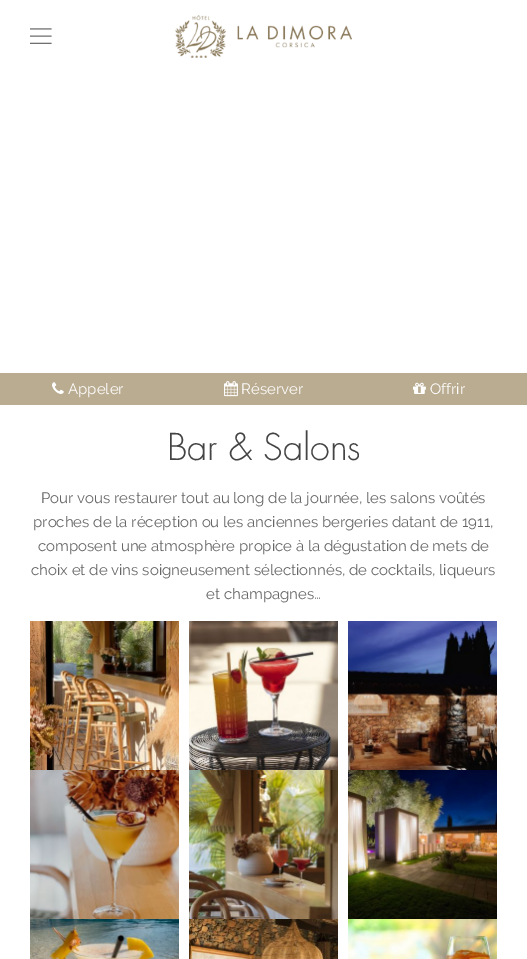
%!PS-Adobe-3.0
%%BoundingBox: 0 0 527 959
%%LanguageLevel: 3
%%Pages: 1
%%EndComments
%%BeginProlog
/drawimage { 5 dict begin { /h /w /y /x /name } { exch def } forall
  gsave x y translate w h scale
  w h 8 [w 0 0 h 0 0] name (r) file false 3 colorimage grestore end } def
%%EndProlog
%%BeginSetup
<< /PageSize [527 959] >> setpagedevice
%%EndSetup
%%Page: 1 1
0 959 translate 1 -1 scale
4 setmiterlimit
1 setgray
0 0 527 959 rectfill
(images/1.raw) 30 28 22 16 drawimage
(images/2.raw) 175 15 177 43 drawimage
0.729 0.675 0.569 setrgbcolor
0 373 527 32 rectfill
(images/3.raw) 52 382 12 12 drawimage
(images/4.raw) 224 381 14 16 drawimage
(images/5.raw) 413 382 13 12 drawimage
(images/6.raw) 30 621 149 149 drawimage
(images/7.raw) 189 621 149 149 drawimage
(images/8.raw) 348 621 149 149 drawimage
(images/9.raw) 30 770 149 149 drawimage
(images/10.raw) 189 770 149 149 drawimage
(images/11.raw) 348 770 149 149 drawimage
(images/12.raw) 30 919 149 40 drawimage
(images/13.raw) 189 919 149 40 drawimage
(images/14.raw) 348 919 149 40 drawimage
/Raleway-Regular [15 0 0 -15 0 0] selectfont
1 setgray
68 394 moveto (Appeler) show
241 394 moveto (Réserver) show
430 394 moveto (Offrir) show
/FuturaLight-Light [36 0 0 -36 0 0] selectfont
0.267 setgray
167 460 moveto (Bar & Salons) show
/Raleway-Regular [15 0 0 -15 0 0] selectfont
0.4 setgray
41 503 moveto (Pour vous restaurer tout au long de la journée, les salons voûtés) show
33 527 moveto (proches de la réception ou les anciennes bergeries datant de 1911,) show
38 551 moveto (composent une atmosphère propice à la dégustation de mets de) show
31 575 moveto (choix et de vins soigneusement sélectionnés, de cocktails, liqueurs) show
206 599 moveto (et champagnes…) show
showpage
%%EOF
